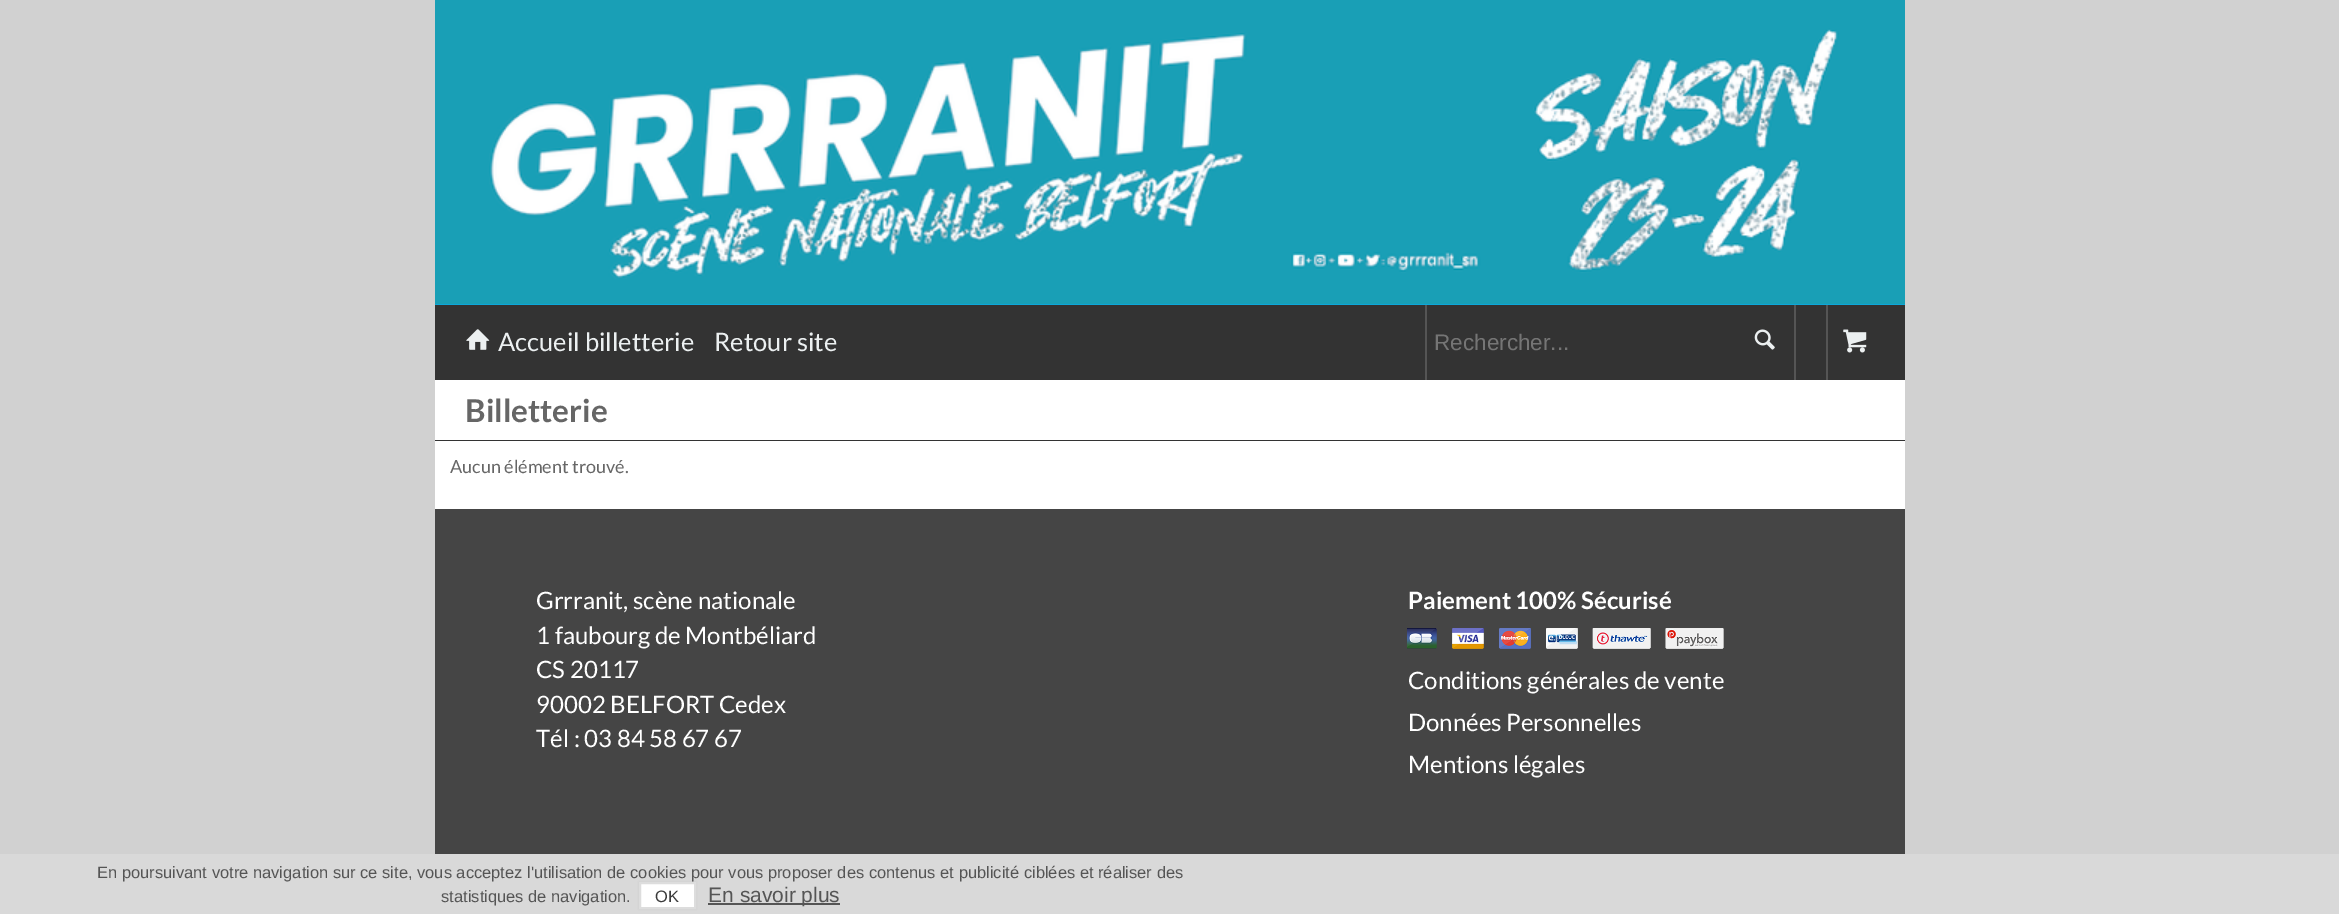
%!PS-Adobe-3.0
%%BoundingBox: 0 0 2339 914
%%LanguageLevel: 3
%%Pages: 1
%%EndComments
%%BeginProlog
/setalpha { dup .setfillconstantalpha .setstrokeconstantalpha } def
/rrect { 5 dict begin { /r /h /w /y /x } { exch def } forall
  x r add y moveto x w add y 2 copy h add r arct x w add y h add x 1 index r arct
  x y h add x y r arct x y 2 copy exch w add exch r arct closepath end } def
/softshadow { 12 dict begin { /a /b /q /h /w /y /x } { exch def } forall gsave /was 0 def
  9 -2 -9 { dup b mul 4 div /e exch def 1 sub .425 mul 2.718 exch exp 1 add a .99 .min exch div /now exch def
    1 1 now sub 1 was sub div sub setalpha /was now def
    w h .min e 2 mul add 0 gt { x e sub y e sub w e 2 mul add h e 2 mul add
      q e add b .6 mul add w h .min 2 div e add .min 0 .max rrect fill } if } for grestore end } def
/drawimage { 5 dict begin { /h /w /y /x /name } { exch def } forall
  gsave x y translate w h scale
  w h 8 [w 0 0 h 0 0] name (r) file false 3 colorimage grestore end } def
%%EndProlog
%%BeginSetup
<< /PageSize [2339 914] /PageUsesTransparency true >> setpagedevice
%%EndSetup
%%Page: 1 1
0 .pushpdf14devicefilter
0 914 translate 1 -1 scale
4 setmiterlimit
0.82 setgray
0 0 2339 914 rectfill
0 0.698 1 setrgbcolor
435 304 1470 1 rectfill
(images/1.raw) 435 0 1470 305 drawimage
0.2 setgray
435 305 1470 75 rectfill
(images/2.raw) 466 329 24 21 drawimage
0.333 setgray
1425 305 2 75 rectfill
(images/3.raw) 1754 329 21 21 drawimage
1794 305 2 75 rectfill
1826 305 2 75 rectfill
(images/4.raw) 1843 329 24 24 drawimage
1 setgray
435 380 1470 60 rectfill
0.2 setgray
435 440 1470 1 rectfill
1 setgray
435 441 1470 68 rectfill
0.271 setgray
435 509 1470 345 rectfill
(images/5.raw) 1407 628 317 21 drawimage
0.851 setgray
0 854 2339 60 rectfill
0.8 setgray
639 882 57 27 0 1.5 1 softshadow
1 setgray
newpath 640 883 moveto 695 883 lineto 695 908 lineto 640 908 lineto closepath gsave fill grestore
0.867 setgray
2 setlinewidth
stroke
0.333 setgray
708 903 132 2 rectfill
/Lato-Regular [25.5 0 0 -25.5 0 0] selectfont
0.925 0.941 0.945 setrgbcolor
498 351 moveto (Accueil billetterie) show
714 351 moveto (Retour site) show
/LiberationSans-Regular [22.5 0 0 -22.5 0 0] selectfont
0.459 setgray
1434 350 moveto (Rechercher...) show
/Lato-Bold [31.5 0 0 -31.5 0 0] selectfont
0.4 setgray
465 422 moveto (Billetterie) show
/Lato-Regular [18 0 0 -18 0 0] selectfont
450 473 moveto (Aucun élément trouvé.) show
/Lato-Regular [24 0 0 -24 0 0] selectfont
1 setgray
536 609 moveto (Grrranit, scène nationale) show
536 644 moveto (1 faubourg de Montbéliard) show
536 678 moveto (CS 20117) show
536 713 moveto (90002 BELFORT Cedex) show
536 747 moveto (Tél : 03 84 58 67 67) show
/Lato-Bold [24 0 0 -24 0 0] selectfont
1408 609 moveto (Paiement 100% Sécurisé) show
/Lato-Regular [24 0 0 -24 0 0] selectfont
1408 689 moveto (Conditions générales de vente) show
1408 731 moveto (Données Personnelles) show
1408 773 moveto (Mentions légales) show
/LiberationSans-Regular [16.5 0 0 -16.5 0 0] selectfont
0.333 setgray
97 878 moveto (En poursuivant votre navigation sur ce site, vous acceptez l'utilisation de cookies pour vous proposer des contenus et publicité ciblées et réaliser des) show
441 902 moveto (statistiques de navigation.) show
0.231 setgray
655 902 moveto (OK) show
/LiberationSans-Regular [21 0 0 -21 0 0] selectfont
0.333 setgray
708 902 moveto (En savoir plus) show
.poppdf14devicefilter showpage
%%EOF
